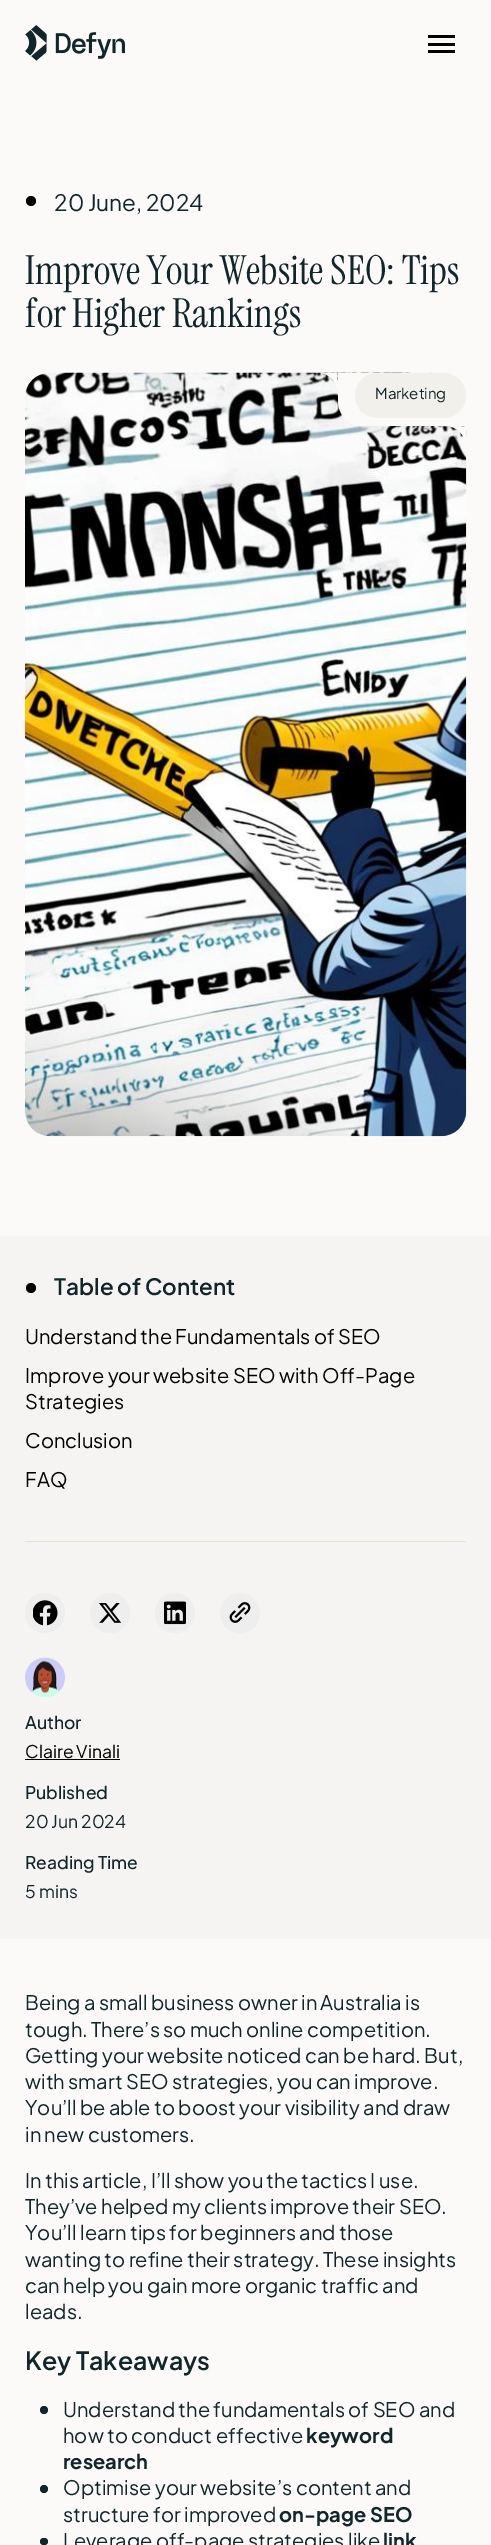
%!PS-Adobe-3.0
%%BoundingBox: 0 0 491 2545
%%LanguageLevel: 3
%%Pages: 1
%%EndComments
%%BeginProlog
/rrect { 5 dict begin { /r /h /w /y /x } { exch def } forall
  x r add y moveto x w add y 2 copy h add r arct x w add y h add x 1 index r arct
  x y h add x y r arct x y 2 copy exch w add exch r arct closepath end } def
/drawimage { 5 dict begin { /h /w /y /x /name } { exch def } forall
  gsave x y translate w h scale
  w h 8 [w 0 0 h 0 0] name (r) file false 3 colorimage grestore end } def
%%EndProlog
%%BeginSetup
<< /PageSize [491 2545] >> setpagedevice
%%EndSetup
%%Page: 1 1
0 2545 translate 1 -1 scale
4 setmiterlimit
0.984 0.98 0.976 setrgbcolor
0 0 491 2545 rectfill
(images/1.raw) 25 25 100 36 drawimage
0 setgray
428 35 27 3 rectfill
428 43 27 3 rectfill
428 50 27 3 rectfill
newpath 31 201 5 0 360 arc closepath fill
(images/2.raw) 25 372 442 765 drawimage
0.984 0.98 0.976 setrgbcolor
newpath 338 373 moveto 469 373 lineto 469 426 lineto 363 426 lineto 349 426 338 415 338 401 curveto closepath fill
gsave
313 373 25 20 rectclip
newpath 337.5 393 moveto 337.5 381.5 328.5 372.5 317 372.5 curveto 312.5 372.5 lineto 337.5 372.5 lineto closepath fill
grestore
0.945 0.941 0.918 setrgbcolor
355 373 111 45 22.5 rrect fill
0.984 0.98 0.976 setrgbcolor
newpath 466 446.5 moveto 466 435.5 457 426 446 426 curveto 441 426 lineto 466 426.5 lineto closepath fill
0.965 0.957 0.953 setrgbcolor
0 1236 491 703 rectfill
0 setgray
newpath 31 1288 5 0 360 arc closepath fill
0.898 0.886 0.808 setrgbcolor
25 1541 441 1 rectfill
0.933 setgray
newpath 45 1613 20 0 360 arc closepath fill
(images/3.raw) 33 1600 25 26 drawimage
newpath 110 1613 20 0 360 arc closepath fill
(images/4.raw) 99 1603 22 20 drawimage
newpath 175 1613 20 0 360 arc closepath fill
(images/5.raw) 164 1601 22 24 drawimage
newpath 240 1613 20 0 360 arc closepath fill
(images/6.raw) 229 1602 22 21 drawimage
(images/7.raw) 25 1657 40 41 drawimage
0 setgray
25 1759 95 1 rectfill
0.063 0.149 0.165 setrgbcolor
newpath 44 2410 4 0 360 arc closepath fill
newpath 44 2489 4 0 360 arc closepath fill
40 2538 8 7 3.5 rrect fill
/PlusJakartaSans-Regular [22.5 0 0 -22.5 0 0] selectfont
54 211 moveto (20 June, 2024) show
/InstrumentSerif-Regular [40 0 0 -40 0 0] selectfont
25 284 moveto (Improve Your Website SEO: Tips) show
25 327 moveto (for Higher Rankings) show
/PlusJakartaSans-Regular [15 0 0 -15 0 0] selectfont
375 399 moveto (Marketing) show
/PlusJakartaSans-SemiBold [22.5 0 0 -22.5 0 0] selectfont
54 1295 moveto (Table of Content) show
/PlusJakartaSans-Regular [20 0 0 -20 0 0] selectfont
0 setgray
25 1344 moveto (Understand the Fundamentals of SEO) show
25 1383 moveto (Improve your website SEO with Off-Page) show
25 1409 moveto (Strategies) show
25 1448 moveto (Conclusion) show
25 1487 moveto (FAQ) show
/PlusJakartaSans-Medium [17.5 0 0 -17.5 0 0] selectfont
0.063 0.149 0.165 setrgbcolor
25 1729 moveto (Author) show
/PlusJakartaSans-Regular [17.5 0 0 -17.5 0 0] selectfont
0 setgray
25 1758 moveto (Claire Vinali) show
/PlusJakartaSans-Medium [17.5 0 0 -17.5 0 0] selectfont
0.063 0.149 0.165 setrgbcolor
25 1799 moveto (Published) show
/PlusJakartaSans-Regular [17.5 0 0 -17.5 0 0] selectfont
25 1828 moveto (20 Jun 2024) show
/PlusJakartaSans-Medium [17.5 0 0 -17.5 0 0] selectfont
25 1869 moveto (Reading Time) show
/PlusJakartaSans-Regular [17.5 0 0 -17.5 0 0] selectfont
25 1898 moveto (5 mins) show
/PlusJakartaSans-Regular [20 0 0 -20 0 0] selectfont
25 2010 moveto (Being a small business owner in Australia is) show
25 2037 moveto (tough. There’s so much online competition.) show
25 2063 moveto (Getting your website noticed can be hard. But,) show
25 2089 moveto (with smart SEO strategies, you can improve.) show
25 2115 moveto (You’ll be able to boost your visibility and draw) show
25 2142 moveto (in new customers.) show
25 2188 moveto (In this article, I’ll show you the tactics I use.) show
25 2214 moveto (They’ve helped my clients improve their SEO.) show
25 2240 moveto (You’ll learn tips for beginners and those) show
25 2267 moveto (wanting to refine their strategy. These insights) show
25 2293 moveto (can help you gain more organic traffic and) show
25 2319 moveto (leads.) show
/PlusJakartaSans-SemiBold [25 0 0 -25 0 0] selectfont
25 2370 moveto (Key Takeaways) show
/PlusJakartaSans-Regular [20 0 0 -20 0 0] selectfont
63 2417 moveto (Understand the fundamentals of SEO and) show
63 2443 moveto (how to conduct effective) show
/PlusJakartaSans-Bold [20 0 0 -20 0 0] selectfont
306 2443 moveto (keyword) show
63 2469 moveto (research) show
/PlusJakartaSans-Regular [20 0 0 -20 0 0] selectfont
63 2495 moveto (Optimise your website’s content and) show
63 2522 moveto (structure for improved) show
/PlusJakartaSans-Bold [20 0 0 -20 0 0] selectfont
279 2522 moveto (on-page SEO) show
/PlusJakartaSans-Regular [20 0 0 -20 0 0] selectfont
63 2548 moveto (Leverage off-page strategies like) show
/PlusJakartaSans-Bold [20 0 0 -20 0 0] selectfont
383 2548 moveto (link) show
showpage
%%EOF
